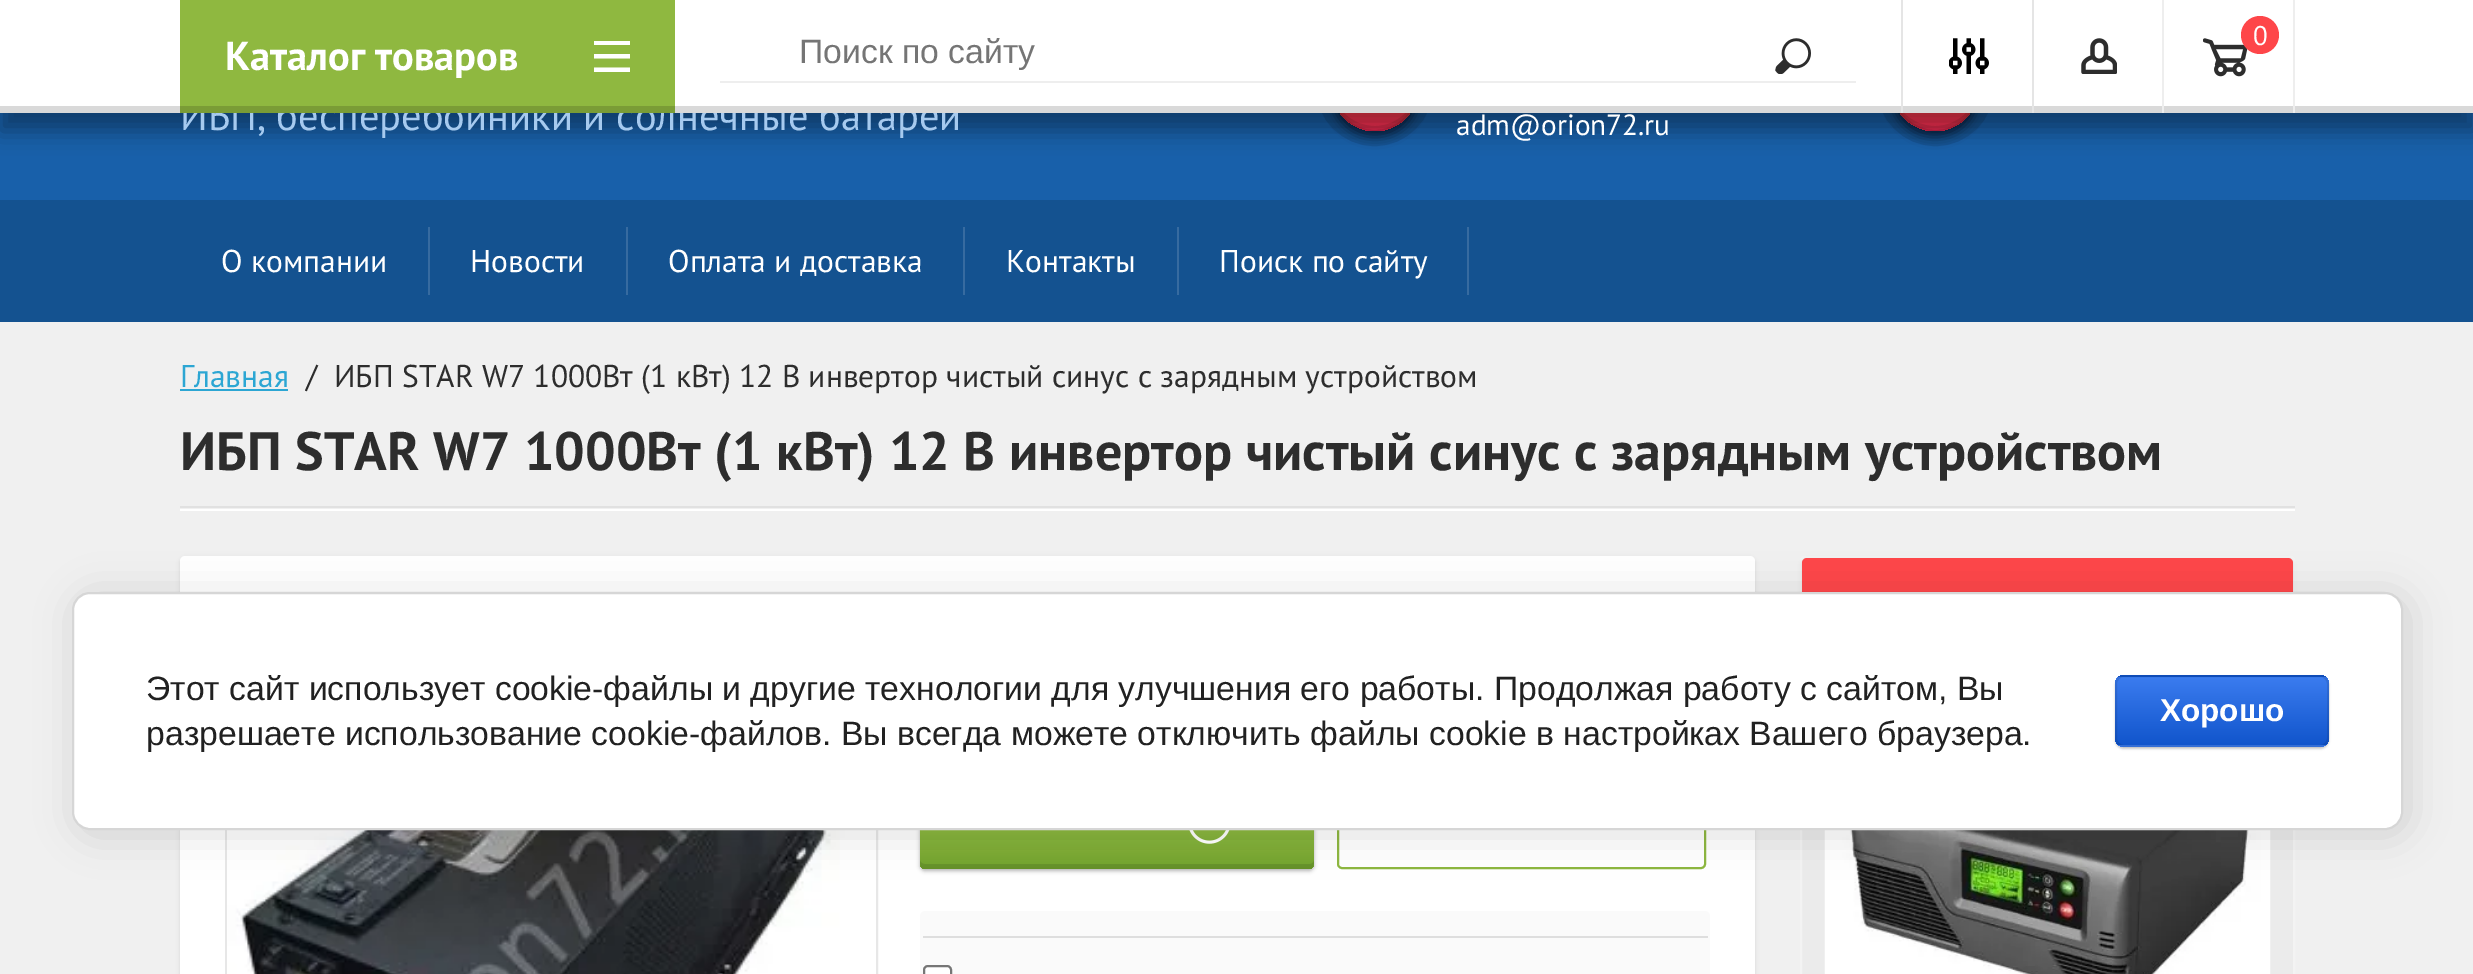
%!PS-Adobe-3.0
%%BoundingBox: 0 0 2473 974
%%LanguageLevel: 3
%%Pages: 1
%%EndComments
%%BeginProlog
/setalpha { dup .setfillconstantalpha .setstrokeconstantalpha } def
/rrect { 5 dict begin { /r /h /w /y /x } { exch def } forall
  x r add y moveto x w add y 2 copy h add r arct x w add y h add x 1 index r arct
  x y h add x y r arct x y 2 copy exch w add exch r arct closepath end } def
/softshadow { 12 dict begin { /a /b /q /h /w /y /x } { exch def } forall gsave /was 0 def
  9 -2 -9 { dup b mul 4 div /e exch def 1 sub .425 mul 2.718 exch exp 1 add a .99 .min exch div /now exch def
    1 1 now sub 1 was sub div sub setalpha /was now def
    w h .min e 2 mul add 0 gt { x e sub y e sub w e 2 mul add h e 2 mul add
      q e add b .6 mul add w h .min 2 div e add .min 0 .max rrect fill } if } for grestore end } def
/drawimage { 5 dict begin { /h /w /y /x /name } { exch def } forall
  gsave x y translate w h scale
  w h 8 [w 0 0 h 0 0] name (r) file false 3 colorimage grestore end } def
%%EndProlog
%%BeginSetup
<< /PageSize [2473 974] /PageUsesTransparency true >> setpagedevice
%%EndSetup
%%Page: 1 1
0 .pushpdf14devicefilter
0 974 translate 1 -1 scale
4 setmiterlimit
0.941 setgray
0 0 2473 974 rectfill
0.094 0.376 0.667 setrgbcolor
0 113 2473 87 rectfill
0 setgray
1332 52 86 85 42.5 5.5 0.55 softshadow
gsave newpath 1375 88 43 0 360 arc closepath clip newpath
<< /ShadingType 2 /ColorSpace /DeviceRGB /Coords [1375 131 1375 45] /Extend [true true] /Function << /FunctionType 2 /Domain [0 1] /C0 [0.992 0.169 0.341] /C1 [1 0.49 0.18] /N 1 >> >> shfill grestore
0.11 setalpha
newpath 1332 86 moveto 1330 129 1386 148 1411 112 curveto 1416 104 1418 95 1418 85 curveto 1417 108 1397 126 1375 126 curveto 1352 126 1333 108 1332 86 curveto closepath fill
0.1 setalpha
16 setlinewidth
newpath 1374.5 87.5 50.5 0 360 arc closepath stroke
1 setalpha
1892 52 86 85 42.5 5.5 0.55 softshadow
gsave newpath 1935 88 43 0 360 arc closepath clip newpath
<< /ShadingType 2 /ColorSpace /DeviceRGB /Coords [1935 131 1935 45] /Extend [true true] /Function << /FunctionType 2 /Domain [0 1] /C0 [0.992 0.169 0.341] /C1 [1 0.49 0.18] /N 1 >> >> shfill grestore
0.11 setalpha
newpath 1978 86 moveto 1977 108 1958 126 1935 126 curveto 1912 126 1893 108 1892 86 curveto 1890 129 1946 148 1971 112 curveto 1976 104 1978 95 1978 86 curveto closepath fill
0.1 setalpha
newpath 1935.5 87.5 50.5 0 360 arc closepath stroke
1 setalpha
0 18 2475 113 0 11 0.36 softshadow
0.078 0.322 0.565 setrgbcolor
0 200 2473 122 rectfill
0.216 0.42 0.627 setrgbcolor
428 227 2 68 rectfill
626 227 2 68 rectfill
963 227 2 68 rectfill
1177 227 2 68 rectfill
1467 227 2 68 rectfill
1 setgray
180 509 2115 2 rectfill
0.173 0.651 0.827 setrgbcolor
180 389 108 2 rectfill
0.882 setgray
180 506 2115 2 rectfill
0 setgray
180 558 1575 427 5 2 0.1 softshadow
1 setgray
180 556 1575 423 5 rrect fill
0.906 setgray
2 setlinewidth
226 602 651 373 rectstroke
(images/5.raw) 227 830 648 144 drawimage
0 setgray
920 790 394 81 5 2 0.29 softshadow
gsave 920 788 394 81 5 rrect clip newpath
<< /ShadingType 2 /ColorSpace /DeviceRGB /Coords [1117 869 1117 788] /Extend [true true] /Function << /FunctionType 2 /Domain [0 1] /C0 [0.439 0.643 0.18] /C1 [0.682 0.8 0.322] /N 1 >> >> shfill grestore
0.11 setalpha
newpath 920 860 moveto 920 864 920 869 925 869 curveto 1310 869 lineto 1314 868 1314 863 1314 860 curveto 1314 862 1312 864 1310 864 curveto 925 864 lineto 922 864 920 862 920 860 curveto closepath fill
1 setalpha
(images/6.raw) 1189 830 41 14 drawimage
0.561 0.722 0.251 setrgbcolor
1338 789 367 79 4 rrect stroke
0.98 setgray
920 911 790 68 5 rrect fill
0.871 setgray
923 936 785 2 rectfill
1 setgray
924 966 27 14 4 rrect gsave fill grestore
0.463 setgray
stroke
0.922 setgray
1801 557 493 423 4 rrect gsave fill grestore
0.953 setgray
stroke
0 setgray
1802 560 491 104 5 2 0.1 softshadow
0.996 0.275 0.286 setrgbcolor
1802 558 491 104 5 rrect fill
(images/7.raw) 1824 830 447 144 drawimage
0 setgray
77 596 2331 239 18 20 0.14 softshadow
1 setgray
73 593 2329 236 17 rrect gsave fill grestore
0.839 setgray
stroke
0 setgray
2115 677 214 72 9 1 0.2 softshadow
gsave
2115 675 214 72 9 rrect clip newpath
gsave newpath 2115 675 moveto 2329 675 lineto 2329 677 lineto 2115 677 lineto closepath clip newpath
<< /ShadingType 2 /ColorSpace /DeviceRGB /Coords [2222 610 2222 677] /Extend [true true] /Function << /FunctionType 2 /Domain [0 1] /C0 [0.231 0.486 0.937] /C1 [0.067 0.333 0.8] /N 1 >> >> shfill grestore
gsave newpath 2115 677 moveto 2329 677 lineto 2329 745 lineto 2115 745 lineto closepath clip newpath
<< /ShadingType 2 /ColorSpace /DeviceRGB /Coords [2222 677 2222 745] /Extend [true true] /Function << /FunctionType 2 /Domain [0 1] /C0 [0.231 0.486 0.937] /C1 [0.067 0.333 0.8] /N 1 >> >> shfill grestore
gsave newpath 2115 745 moveto 2329 745 lineto 2329 747 lineto 2115 747 lineto closepath clip newpath
<< /ShadingType 2 /ColorSpace /DeviceRGB /Coords [2222 745 2222 812] /Extend [true true] /Function << /FunctionType 2 /Domain [0 1] /C0 [0.231 0.486 0.937] /C1 [0.067 0.333 0.8] /N 1 >> >> shfill grestore
grestore
0.1 setalpha
2116 676 212 70 8 rrect stroke
/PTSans-Regular [40.5 0 0 -40.5 0 0] selectfont
1 setalpha
0.651 0.792 0.937 setrgbcolor
180 130 moveto (ИБП, бесперебойники и солнечные батареи) show
1 setgray
0 0 2473 106 rectfill
(images/4.raw) 2203 38 45 39 drawimage
0.996 0.275 0.286 setrgbcolor
newpath 2260 35 19 0 360 arc closepath fill
/PTSans-Regular [27 0 0 -27 0 0] selectfont
1 setgray
2253 45 moveto (0) show
0.851 setgray
0 106 2473 7 rectfill
0.933 setgray
2162 0 2 113 rectfill
(images/3.raw) 2081 38 36 36 drawimage
0.898 setgray
2032 0 2 113 rectfill
(images/2.raw) 1949 38 40 36 drawimage
1901 0 2 113 rectfill
0.561 0.722 0.251 setrgbcolor
180 0 495 106 rectfill
gsave
594 41 36 31 rectclip
1 setgray
newpath 594 67.5 moveto 630 67.5 lineto 630 72 lineto 594 72 lineto closepath 594 54 moveto 630 54 lineto 630 58.5 lineto 594 58.5 lineto closepath 594 40.5 moveto 630 40.5 lineto 630 45 lineto 594 45 lineto closepath fill
grestore
/PTSans-Bold [40.5 0 0 -40.5 0 0] selectfont
1 setgray
225 70 moveto (Каталог товаров) show
0.478 0.612 0.212 setrgbcolor
180 106 495 7 rectfill
/LiberationSans-Regular [33.75 0 0 -33.75 0 0] selectfont
0.459 setgray
799 63 moveto (Поиск по сайту) show
0.933 setgray
2293 0 2 113 rectfill
(images/1.raw) 1775 38 36 36 drawimage
720 81 1136 2 rectfill
/PTSans-Regular [29.25 0 0 -29.25 0 0] selectfont
1 setgray
1456 135 moveto (adm@orion72.ru) show
/PTSans-Regular [31.5 0 0 -31.5 0 0] selectfont
221 272 moveto (О компании) show
470 272 moveto (Новости) show
668 272 moveto (Оплата и доставка) show
1006 272 moveto (Контакты) show
1219 272 moveto (Поиск по сайту) show
0.173 0.651 0.827 setrgbcolor
180 387 moveto (Главная) show
0.176 setgray
306 387 moveto (/  ИБП STAR W7 1000Вт \(1 кВт\) 12 В инвертор чистый синус с зарядным устройством) show
/PTSans-Bold [54 0 0 -54 0 0] selectfont
180 470 moveto (ИБП STAR W7 1000Вт \(1 кВт\) 12 В инвертор чистый синус с зарядным устройством) show
/LiberationSans-Regular [33.75 0 0 -33.75 0 0] selectfont
0.129 setgray
146 700 moveto (Этот сайт использует cookie-файлы и другие технологии для улучшения его работы. Продолжая работу с сайтом, Вы) show
146 745 moveto (разрешаете использование cookie-файлов. Вы всегда можете отключить файлы cookie в настройках Вашего браузера.) show
/LiberationSans-Bold [31.5 0 0 -31.5 0 0] selectfont
1 setgray
2160 721 moveto (Хорошо) show
.poppdf14devicefilter showpage
%%EOF
